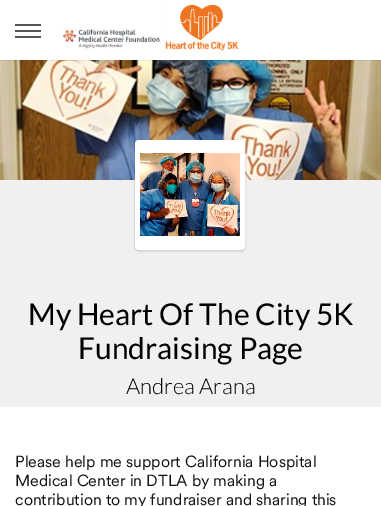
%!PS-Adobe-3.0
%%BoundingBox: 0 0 381 506
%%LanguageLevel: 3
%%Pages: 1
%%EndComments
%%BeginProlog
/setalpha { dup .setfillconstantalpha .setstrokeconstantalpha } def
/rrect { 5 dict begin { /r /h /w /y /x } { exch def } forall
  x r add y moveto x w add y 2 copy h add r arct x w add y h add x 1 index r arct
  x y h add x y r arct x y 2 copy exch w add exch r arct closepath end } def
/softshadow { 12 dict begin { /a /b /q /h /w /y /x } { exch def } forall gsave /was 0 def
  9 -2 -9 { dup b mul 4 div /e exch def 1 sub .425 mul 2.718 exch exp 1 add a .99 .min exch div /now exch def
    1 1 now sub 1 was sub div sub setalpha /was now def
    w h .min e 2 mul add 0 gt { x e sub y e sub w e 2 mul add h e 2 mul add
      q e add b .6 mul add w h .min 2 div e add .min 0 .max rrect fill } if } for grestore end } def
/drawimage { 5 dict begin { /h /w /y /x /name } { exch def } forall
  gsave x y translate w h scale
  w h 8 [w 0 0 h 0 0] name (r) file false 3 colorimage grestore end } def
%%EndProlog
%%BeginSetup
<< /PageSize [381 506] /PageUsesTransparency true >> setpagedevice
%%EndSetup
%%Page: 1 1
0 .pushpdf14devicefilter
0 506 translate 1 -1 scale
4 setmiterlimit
1 setgray
0 0 381 506 rectfill
(images/2.raw) 0 60 381 120 drawimage
gsave
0 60 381 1 rectclip
0 setgray
0 0 381 60 0 1 0.2 softshadow
grestore
0.333 setgray
15 24 26 2 rectfill
15 30 26 2 rectfill
15 36 26 2 rectfill
(images/1.raw) 63 4 176 47 drawimage
0.941 setgray
0 180 381 227 rectfill
0 setgray
135 141 110 110 4 1 0.25 softshadow
1 setgray
5 setlinewidth
137.5 142.5 105 105 1.5 rrect stroke
140 145 100 100 rectfill
(images/3.raw) 140 153 100 83 drawimage
/Lato-Regular [30 0 0 -30 0 0] selectfont
0 setgray
28 325 moveto (My Heart Of The City 5K) show
78 359 moveto (Fundraising Page) show
/Lato-Light [22 0 0 -22 0 0] selectfont
126 394 moveto (Andrea Arana) show
/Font-Regular [16 0 0 -16 0 0] selectfont
0.067 setgray
15 467 moveto (Please help me support California Hospital) show
15 486 moveto (Medical Center in DTLA by making a) show
15 505 moveto (contribution to my fundraiser and sharing this) show
.poppdf14devicefilter showpage
%%EOF
